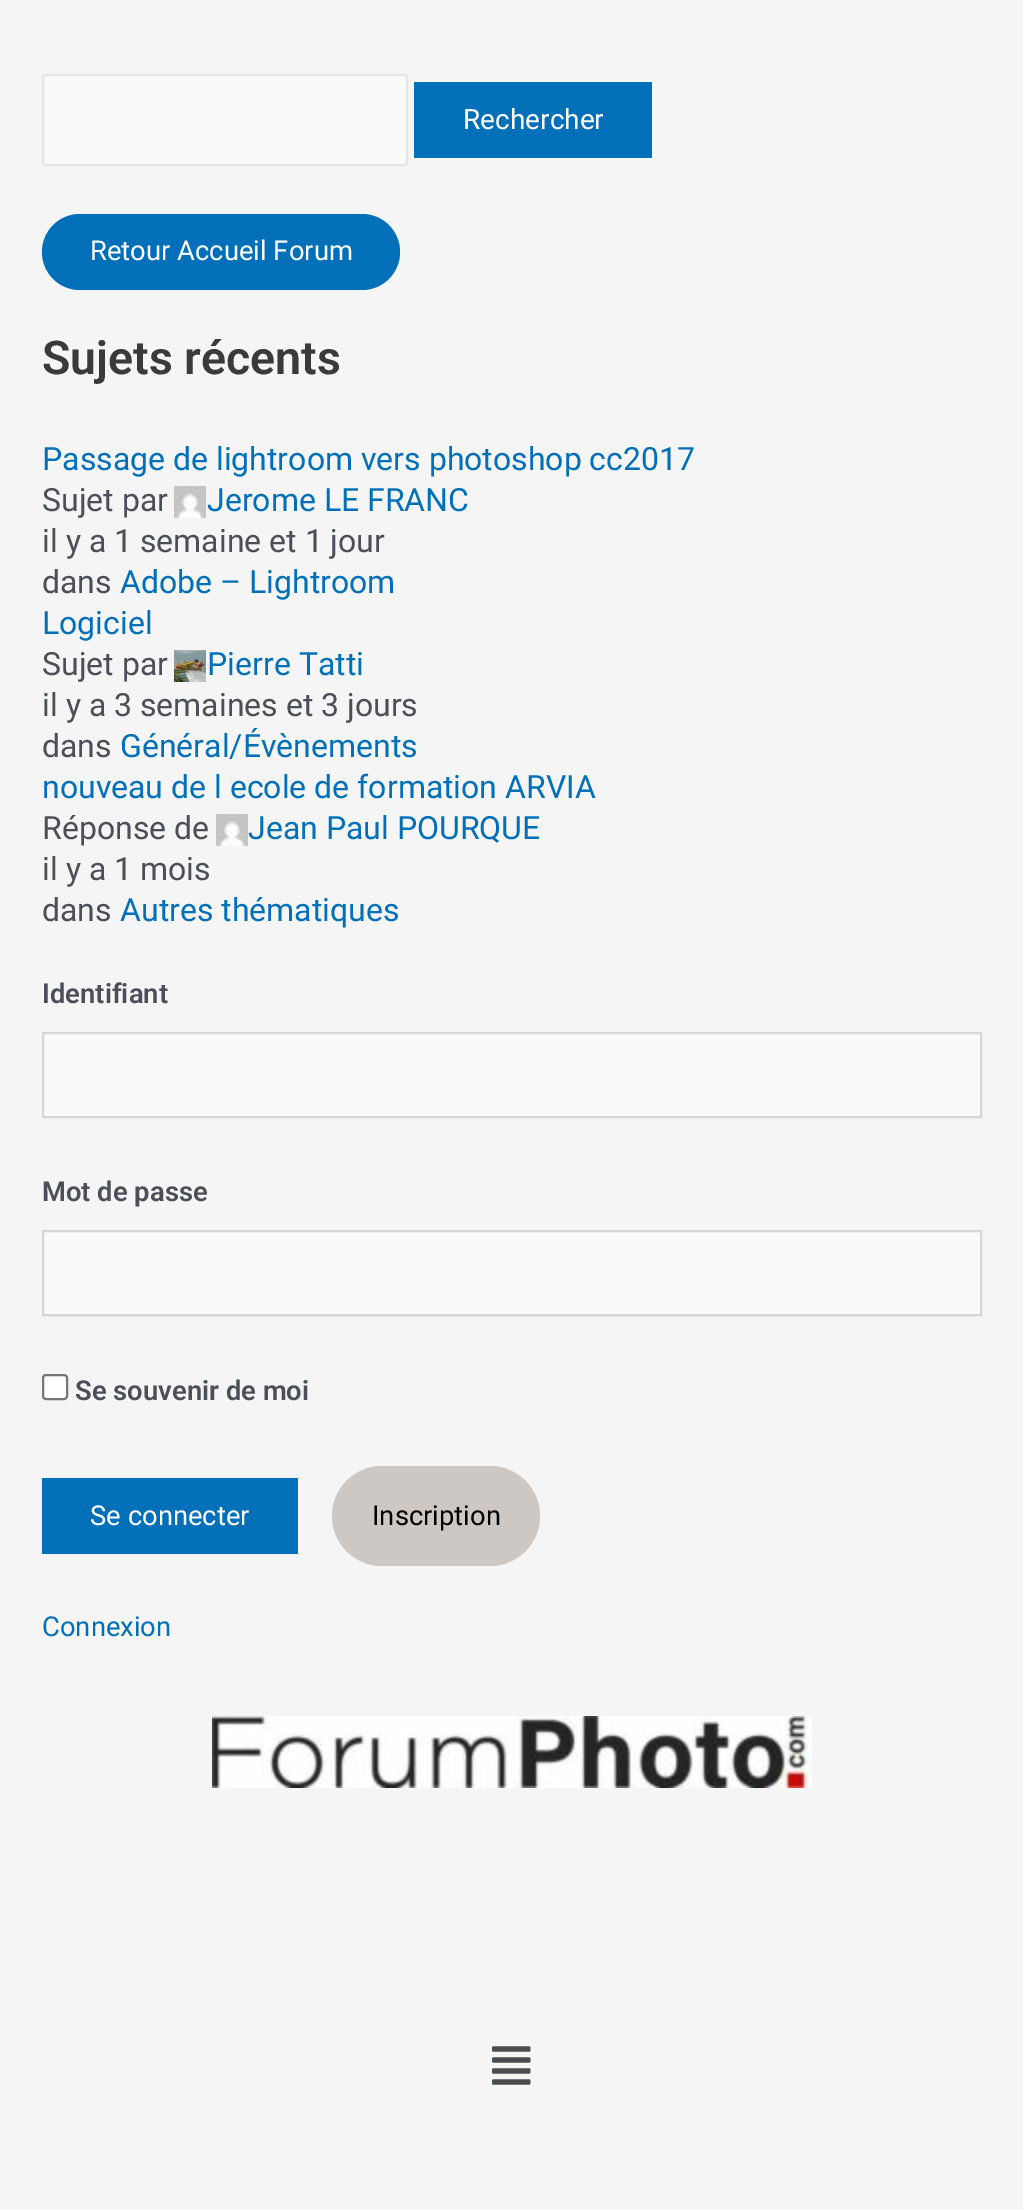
%!PS-Adobe-3.0
%%BoundingBox: 0 0 1023 2210
%%LanguageLevel: 3
%%Pages: 1
%%EndComments
%%BeginProlog
/rrect { 5 dict begin { /r /h /w /y /x } { exch def } forall
  x r add y moveto x w add y 2 copy h add r arct x w add y h add x 1 index r arct
  x y h add x y r arct x y 2 copy exch w add exch r arct closepath end } def
/drawimage { 5 dict begin { /h /w /y /x /name } { exch def } forall
  gsave x y translate w h scale
  w h 8 [w 0 0 h 0 0] name (r) file false 3 colorimage grestore end } def
%%EndProlog
%%BeginSetup
<< /PageSize [1023 2210] >> setpagedevice
%%EndSetup
%%Page: 1 1
0 2210 translate 1 -1 scale
4 setmiterlimit
0.961 setgray
0 0 1023 2210 rectfill
0.98 setgray
43 75 364 90 3 rrect gsave fill grestore
0.898 setgray
2 setlinewidth
stroke
0.004 0.439 0.725 setrgbcolor
414 82 238 76 rectfill
42 214 358 76 38 rrect fill
(images/1.raw) 174 486 32 32 drawimage
(images/2.raw) 174 650 32 32 drawimage
(images/1.raw) 216 814 32 32 drawimage
0.98 setgray
newpath 43 1033 moveto 981 1033 lineto 981 1117 lineto 43 1117 lineto closepath gsave fill grestore
0.839 setgray
stroke
0.98 setgray
newpath 43 1231 moveto 981 1231 lineto 981 1315 lineto 43 1315 lineto closepath gsave fill grestore
0.839 setgray
stroke
1 setgray
43 1375 24 24 3 rrect gsave fill grestore
0.463 setgray
stroke
0.004 0.439 0.725 setrgbcolor
42 1478 256 76 rectfill
0.804 0.784 0.765 setrgbcolor
332 1466 208 100 50 rrect fill
(images/3.raw) 212 1716 600 72 drawimage
(images/4.raw) 492 2046 39 39 drawimage
/Roboto-Regular [28 0 0 -28 0 0] selectfont
1 setgray
463 129 moveto (Rechercher) show
/Roboto-Regular [27.4 0 0 -27.4 0 0] selectfont
90 260 moveto (Retour Accueil Forum) show
/Roboto-SemiBold [46.5 0 0 -46.5 0 0] selectfont
0.227 setgray
42 374 moveto (Sujets récents) show
/Roboto-Regular [32 0 0 -32 0 0] selectfont
0.004 0.439 0.725 setrgbcolor
42 470 moveto (Passage de lightroom vers photoshop cc2017) show
0.294 0.31 0.345 setrgbcolor
42 511 moveto (Sujet par) show
0.004 0.439 0.725 setrgbcolor
207 511 moveto (Jerome LE FRANC) show
0.294 0.31 0.345 setrgbcolor
42 552 moveto (il y a 1 semaine et 1 jour) show
42 593 moveto (dans) show
0.004 0.439 0.725 setrgbcolor
120 593 moveto (Adobe – Lightroom) show
42 634 moveto (Logiciel) show
0.294 0.31 0.345 setrgbcolor
42 675 moveto (Sujet par) show
0.004 0.439 0.725 setrgbcolor
207 675 moveto (Pierre Tatti) show
0.294 0.31 0.345 setrgbcolor
42 716 moveto (il y a 3 semaines et 3 jours) show
42 757 moveto (dans) show
0.004 0.439 0.725 setrgbcolor
120 757 moveto (Général/Évènements) show
42 798 moveto (nouveau de l ecole de formation ARVIA) show
0.294 0.31 0.345 setrgbcolor
42 839 moveto (Réponse de) show
0.004 0.439 0.725 setrgbcolor
248 839 moveto (Jean Paul POURQUE) show
0.294 0.31 0.345 setrgbcolor
42 880 moveto (il y a 1 mois) show
42 921 moveto (dans) show
0.004 0.439 0.725 setrgbcolor
120 921 moveto (Autres thématiques) show
/Roboto-SemiBold [27.4 0 0 -27.4 0 0] selectfont
0.294 0.31 0.345 setrgbcolor
42 1003 moveto (Identifiant) show
42 1201 moveto (Mot de passe) show
75 1400 moveto (Se souvenir de moi) show
/Roboto-Regular [27.4 0 0 -27.4 0 0] selectfont
1 setgray
90 1525 moveto (Se connecter) show
0 setgray
372 1525 moveto (Inscription) show
0.004 0.439 0.725 setrgbcolor
42 1636 moveto (Connexion) show
showpage
%%EOF
